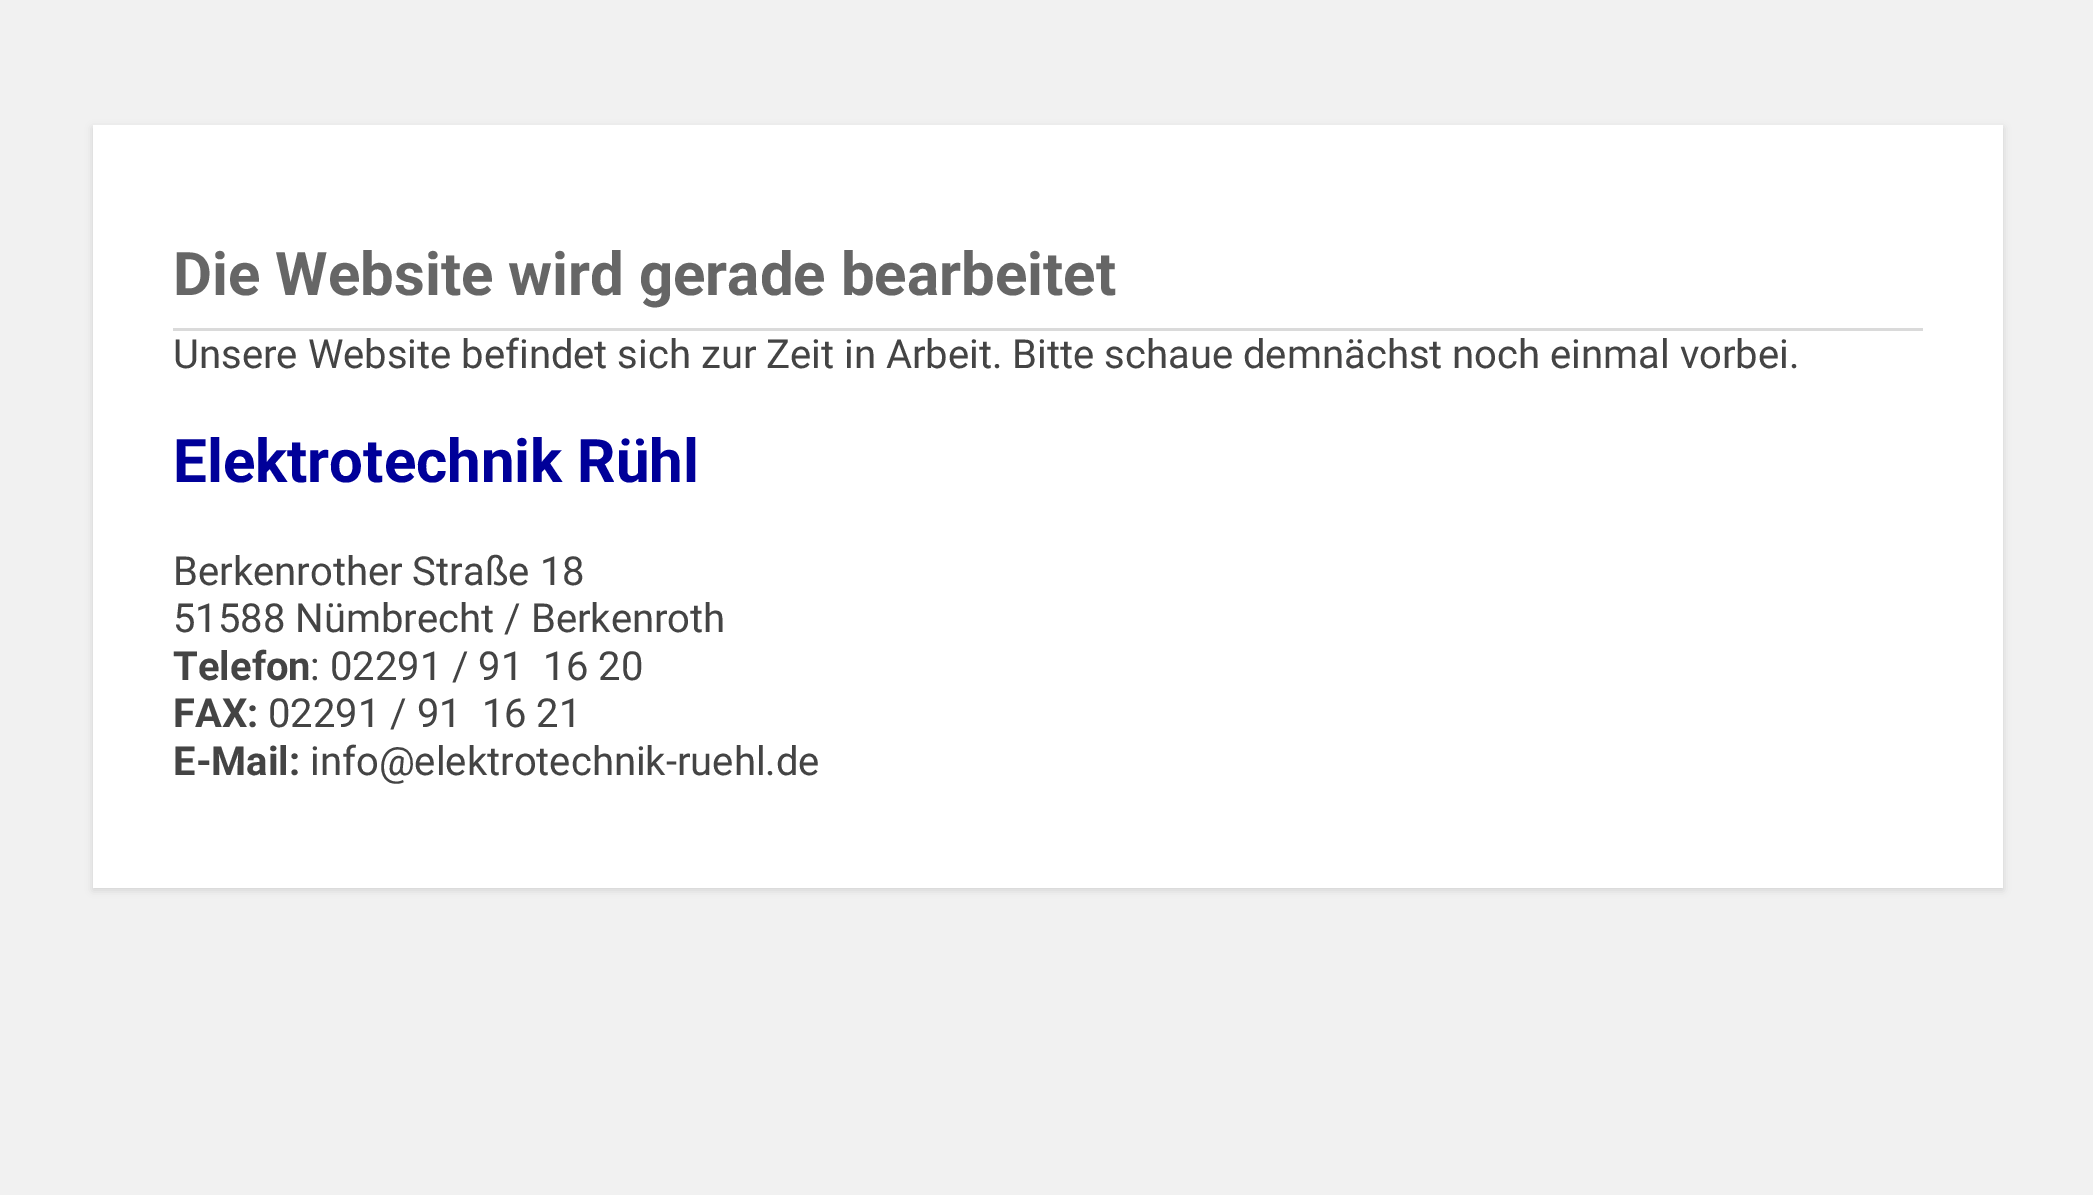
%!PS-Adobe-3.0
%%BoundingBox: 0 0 2093 1195
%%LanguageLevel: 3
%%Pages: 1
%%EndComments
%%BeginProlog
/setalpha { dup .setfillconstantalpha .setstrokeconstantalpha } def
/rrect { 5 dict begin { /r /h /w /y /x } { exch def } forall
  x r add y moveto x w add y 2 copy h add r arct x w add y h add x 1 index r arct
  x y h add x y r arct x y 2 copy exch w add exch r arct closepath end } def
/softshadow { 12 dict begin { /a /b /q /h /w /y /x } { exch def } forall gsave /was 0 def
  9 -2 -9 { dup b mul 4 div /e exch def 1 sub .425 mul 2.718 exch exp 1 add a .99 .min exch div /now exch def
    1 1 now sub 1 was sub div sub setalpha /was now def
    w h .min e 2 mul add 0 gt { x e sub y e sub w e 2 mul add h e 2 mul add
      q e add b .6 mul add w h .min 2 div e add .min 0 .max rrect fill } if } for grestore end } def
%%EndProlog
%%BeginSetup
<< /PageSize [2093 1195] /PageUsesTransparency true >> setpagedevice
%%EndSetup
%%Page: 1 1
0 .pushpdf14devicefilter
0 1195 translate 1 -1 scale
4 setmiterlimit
0.945 setgray
0 0 2093 1195 rectfill
0 setgray
93 128 1910 762 0 4 0.13 softshadow
1 setgray
93 125 1910 763 rectfill
0.855 setgray
173 328 1750 3 rectfill
/Roboto-Bold [60 0 0 -60 0 0] selectfont
0.4 setgray
173 295 moveto (Die Website wird gerade bearbeitet) show
/Roboto-Regular [40 0 0 -40 0 0] selectfont
0.267 setgray
173 368 moveto (Unsere Website befindet sich zur Zeit in Arbeit. Bitte schaue demnächst noch einmal vorbei.) show
/Roboto-Bold [60 0 0 -60 0 0] selectfont
0 0 0.6 setrgbcolor
173 482 moveto (Elektrotechnik Rühl) show
/Roboto-Regular [40 0 0 -40 0 0] selectfont
0.267 setgray
173 585 moveto (Berkenrother Straße 18) show
173 632 moveto (51588 Nümbrecht / Berkenroth) show
/Roboto-Bold [40 0 0 -40 0 0] selectfont
173 680 moveto (Telefon) show
/Roboto-Regular [40 0 0 -40 0 0] selectfont
310 680 moveto (: 02291 / 91  16 20) show
/Roboto-Bold [40 0 0 -40 0 0] selectfont
173 727 moveto (FAX:) show
/Roboto-Regular [40 0 0 -40 0 0] selectfont
268 727 moveto (02291 / 91  16 21) show
/Roboto-Bold [40 0 0 -40 0 0] selectfont
173 775 moveto (E-Mail:) show
/Roboto-Regular [40 0 0 -40 0 0] selectfont
310 775 moveto (info@elektrotechnik-ruehl.de) show
.poppdf14devicefilter showpage
%%EOF
